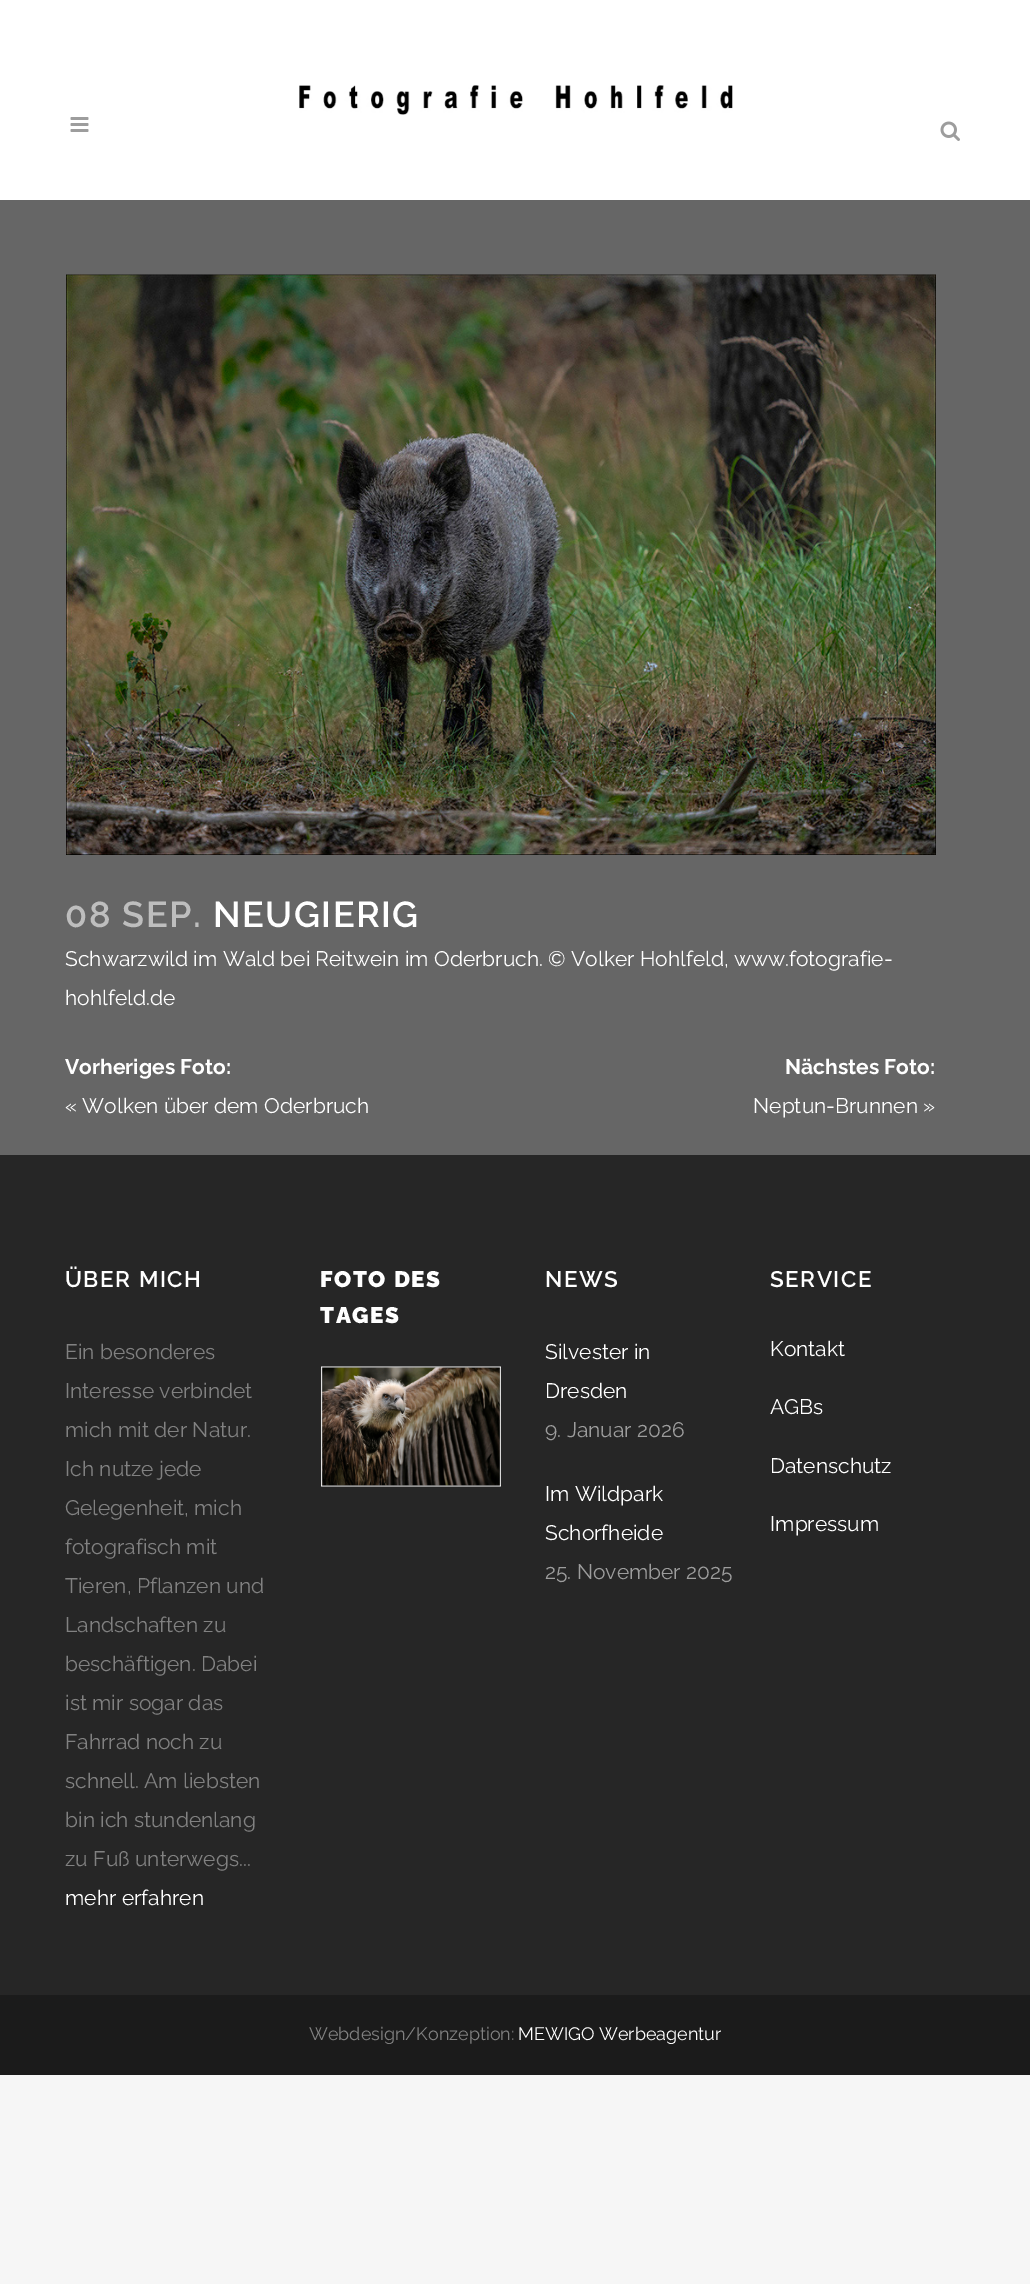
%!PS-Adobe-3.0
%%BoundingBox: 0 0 1030 2284
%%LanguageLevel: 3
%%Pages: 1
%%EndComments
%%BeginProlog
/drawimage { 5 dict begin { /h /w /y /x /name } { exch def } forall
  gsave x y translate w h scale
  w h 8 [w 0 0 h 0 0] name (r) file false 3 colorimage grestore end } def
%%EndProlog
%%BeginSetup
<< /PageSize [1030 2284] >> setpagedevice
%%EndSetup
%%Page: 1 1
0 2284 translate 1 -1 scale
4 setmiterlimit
0.965 setgray
0 0 1030 2284 rectfill
1 setgray
0 0 1030 200 rectfill
(images/1.raw) 299 85 434 30 drawimage
(images/2.raw) 70 117 19 15 drawimage
(images/3.raw) 940 121 20 20 drawimage
0.4 setgray
0 200 1030 955 rectfill
(images/4.raw) 66 274 870 581 drawimage
0.149 setgray
0 1155 1030 840 rectfill
(images/5.raw) 321 1366 180 121 drawimage
0.106 setgray
0 1995 1030 80 rectfill
/Raleway-SemiBold [36 0 0 -36 0 0] selectfont
0.745 setgray
65 927 moveto 1.5 0 (08 SEP.) ashow
1 setgray
213 927 moveto 1.5 0 (NEUGIERIG) ashow
/Raleway-Regular [21 0 0 -21 0 0] selectfont
65 966 moveto (Schwarzwild im Wald bei Reitwein im Oderbruch. © Volker Hohlfeld, www.fotografie-) show
65 1005 moveto (hohlfeld.de) show
/Raleway-Bold [21 0 0 -21 0 0] selectfont
65 1074 moveto (Vorheriges Foto:) show
/Raleway-Regular [21 0 0 -21 0 0] selectfont
65 1113 moveto (« Wolken über dem Oderbruch) show
/Raleway-Bold [21 0 0 -21 0 0] selectfont
785 1074 moveto (Nächstes Foto:) show
/Raleway-Regular [21 0 0 -21 0 0] selectfont
753 1113 moveto (Neptun-Brunnen ») show
/Raleway-SemiBold [22.5 0 0 -22.5 0 0] selectfont
65 1287 moveto 1.5 0 (ÜBER MICH) ashow
/Raleway-Regular [21 0 0 -21 0 0] selectfont
0.506 setgray
65 1359 moveto (Ein besonderes) show
65 1398 moveto (Interesse verbindet) show
65 1437 moveto (mich mit der Natur.) show
65 1476 moveto (Ich nutze jede) show
65 1515 moveto (Gelegenheit, mich) show
65 1554 moveto (fotografisch mit) show
65 1593 moveto (Tieren, Pflanzen und) show
65 1632 moveto (Landschaften zu) show
65 1671 moveto (beschäftigen. Dabei) show
65 1710 moveto (ist mir sogar das) show
65 1749 moveto (Fahrrad noch zu) show
65 1788 moveto (schnell. Am liebsten) show
65 1827 moveto (bin ich stundenlang) show
65 1866 moveto (zu Fuß unterwegs...) show
1 setgray
65 1905 moveto (mehr erfahren) show
/Raleway-Black [22.5 0 0 -22.5 0 0] selectfont
320 1287 moveto 1.5 0 (FOTO DES) ashow
320 1323 moveto 1.5 0 (TAGES) ashow
/Raleway-SemiBold [22.5 0 0 -22.5 0 0] selectfont
545 1287 moveto 1.5 0 (NEWS) ashow
/Raleway-Regular [21 0 0 -21 0 0] selectfont
545 1359 moveto (Silvester in) show
545 1398 moveto (Dresden) show
0.616 setgray
545 1437 moveto (9. Januar 2026) show
1 setgray
545 1501 moveto (Im Wildpark) show
545 1540 moveto (Schorfheide) show
0.616 setgray
545 1579 moveto (25. November 2025) show
/Raleway-SemiBold [22.5 0 0 -22.5 0 0] selectfont
1 setgray
770 1287 moveto 1.5 0 (SERVICE) ashow
/Raleway-Regular [21 0 0 -21 0 0] selectfont
770 1356 moveto (Kontakt) show
770 1414 moveto (AGBs) show
770 1473 moveto (Datenschutz) show
770 1531 moveto (Impressum) show
/Raleway-Regular [18 0 0 -18 0 0] selectfont
0.506 setgray
309 2040 moveto (Webdesign/Konzeption:) show
1 setgray
518 2040 moveto (MEWIGO Werbeagentur) show
showpage
%%EOF
